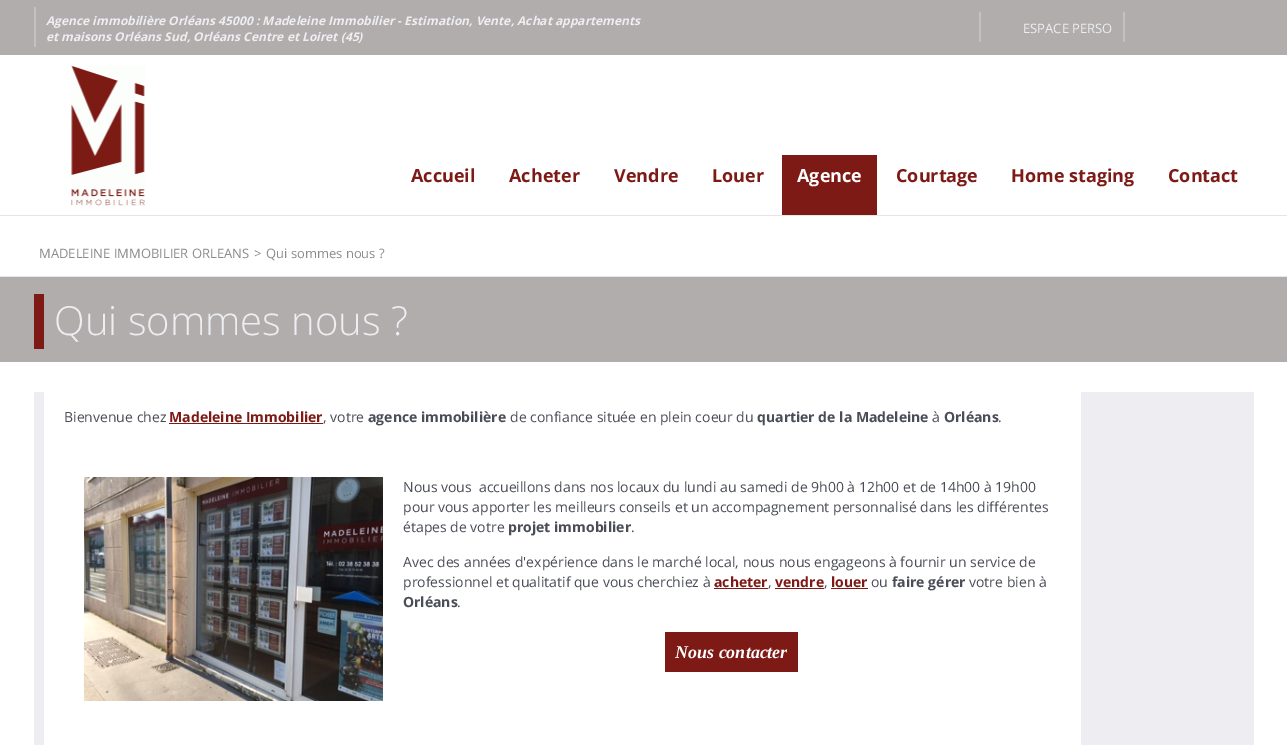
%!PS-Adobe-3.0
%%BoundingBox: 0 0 1287 745
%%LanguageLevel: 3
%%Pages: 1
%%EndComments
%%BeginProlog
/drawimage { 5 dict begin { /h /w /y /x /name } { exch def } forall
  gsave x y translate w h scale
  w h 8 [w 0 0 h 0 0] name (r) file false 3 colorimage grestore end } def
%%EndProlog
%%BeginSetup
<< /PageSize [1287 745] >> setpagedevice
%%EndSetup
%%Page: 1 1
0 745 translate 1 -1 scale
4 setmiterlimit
1 setgray
0 0 1287 745 rectfill
0.694 0.678 0.678 setrgbcolor
0 0 1287 55 rectfill
0.765 0.757 0.761 setrgbcolor
34 7 2 40 rectfill
1123 12 2 30 rectfill
979 12 2 30 rectfill
0.902 setgray
0 215 1287 1 rectfill
(images/1.raw) 71 66 75 140 drawimage
0.49 0.102 0.082 setrgbcolor
782 155 95 60 rectfill
0.902 setgray
0 276 1287 1 rectfill
0.694 0.678 0.678 setrgbcolor
0 277 1287 85 rectfill
0.49 0.102 0.082 setrgbcolor
34 294 10 55 rectfill
0.933 0.933 0.949 setrgbcolor
34 392 1220 353 rectfill
1 setgray
44 392 1037 353 rectfill
0.49 0.102 0.082 setrgbcolor
169 423 154 1 rectfill
(images/2.raw) 84 477 299 224 drawimage
714 588 54 1 rectfill
775 588 49 1 rectfill
831 588 37 1 rectfill
665 632 133 40 rectfill
/OpenSans-BoldItalic [12 0 0 -12 0 0] selectfont
0.933 0.933 0.949 setrgbcolor
46 25 moveto (Agence immobilière Orléans 45000 : Madeleine Immobilier - Estimation, Vente, Achat appartements) show
46 41 moveto (et maisons Orléans Sud, Orléans Centre et Loiret \(45\)) show
/OpenSans-Regular [13 0 0 -13 0 0] selectfont
1023 33 moveto (ESPACE PERSO) show
/OpenSans-Bold [18 0 0 -18 0 0] selectfont
0.49 0.102 0.082 setrgbcolor
411 182 moveto (Accueil) show
509 182 moveto (Acheter) show
614 182 moveto (Vendre) show
712 182 moveto (Louer) show
1 setgray
797 182 moveto (Agence) show
0.49 0.102 0.082 setrgbcolor
896 182 moveto (Courtage) show
1011 182 moveto (Home staging) show
1168 182 moveto (Contact) show
/OpenSans-Regular [13 0 0 -13 0 0] selectfont
0.545 setgray
39 258 moveto (MADELEINE IMMOBILIER ORLEANS) show
254 258 moveto (>) show
266 258 moveto (Qui sommes nous ?) show
/OpenSans-Light [40 0 0 -40 0 0] selectfont
0.933 0.933 0.949 setrgbcolor
54 335 moveto (Qui sommes nous ?) show
/OpenSans-Regular [14 0 0 -14 0 0] selectfont
0.29 0.302 0.341 setrgbcolor
64 422 moveto (Bienvenue chez) show
/OpenSans-Bold [14 0 0 -14 0 0] selectfont
0.49 0.102 0.082 setrgbcolor
169 422 moveto (Madeleine Immobilier) show
/OpenSans-Regular [14 0 0 -14 0 0] selectfont
0.29 0.302 0.341 setrgbcolor
323 422 moveto (, votre) show
/OpenSans-Bold [14 0 0 -14 0 0] selectfont
368 422 moveto (agence immobilière) show
/OpenSans-Regular [14 0 0 -14 0 0] selectfont
510 422 moveto (de confiance située en plein coeur du) show
/OpenSans-Bold [14 0 0 -14 0 0] selectfont
757 422 moveto (quartier de la Madeleine) show
/OpenSans-Regular [14 0 0 -14 0 0] selectfont
932 422 moveto (à) show
/OpenSans-Bold [14 0 0 -14 0 0] selectfont
944 422 moveto (Orléans) show
/OpenSans-Regular [14 0 0 -14 0 0] selectfont
998 422 moveto (.) show
403 492 moveto (Nous vous  accueillons dans nos locaux du lundi au samedi de 9h00 à 12h00 et de 14h00 à 19h00) show
403 512 moveto (pour vous apporter les meilleurs conseils et un accompagnement personnalisé dans les différentes) show
403 532 moveto (étapes de votre) show
/OpenSans-Bold [14 0 0 -14 0 0] selectfont
508 532 moveto (projet immobilier) show
/OpenSans-Regular [14 0 0 -14 0 0] selectfont
631 532 moveto (.) show
403 567 moveto (Avec des années d'expérience dans le marché local, nous nous engageons à fournir un service de) show
403 587 moveto (professionnel et qualitatif que vous cherchiez à) show
/OpenSans-Bold [14 0 0 -14 0 0] selectfont
0.49 0.102 0.082 setrgbcolor
714 587 moveto (acheter) show
/OpenSans-Regular [14 0 0 -14 0 0] selectfont
0.29 0.302 0.341 setrgbcolor
768 587 moveto (,) show
/OpenSans-Bold [14 0 0 -14 0 0] selectfont
0.49 0.102 0.082 setrgbcolor
775 587 moveto (vendre) show
/OpenSans-Regular [14 0 0 -14 0 0] selectfont
0.29 0.302 0.341 setrgbcolor
824 587 moveto (,) show
/OpenSans-Bold [14 0 0 -14 0 0] selectfont
0.49 0.102 0.082 setrgbcolor
831 587 moveto (louer) show
/OpenSans-Regular [14 0 0 -14 0 0] selectfont
0.29 0.302 0.341 setrgbcolor
871 587 moveto (ou) show
/OpenSans-Bold [14 0 0 -14 0 0] selectfont
892 587 moveto (faire gérer) show
/OpenSans-Regular [14 0 0 -14 0 0] selectfont
969 587 moveto (votre bien à) show
/OpenSans-Bold [14 0 0 -14 0 0] selectfont
403 607 moveto (Orléans) show
/OpenSans-Regular [14 0 0 -14 0 0] selectfont
457 607 moveto (.) show
/LiberationSerif-BoldItalic [18 0 0 -18 0 0] selectfont
1 setgray
675 658 moveto (Nous contacter) show
showpage
%%EOF
